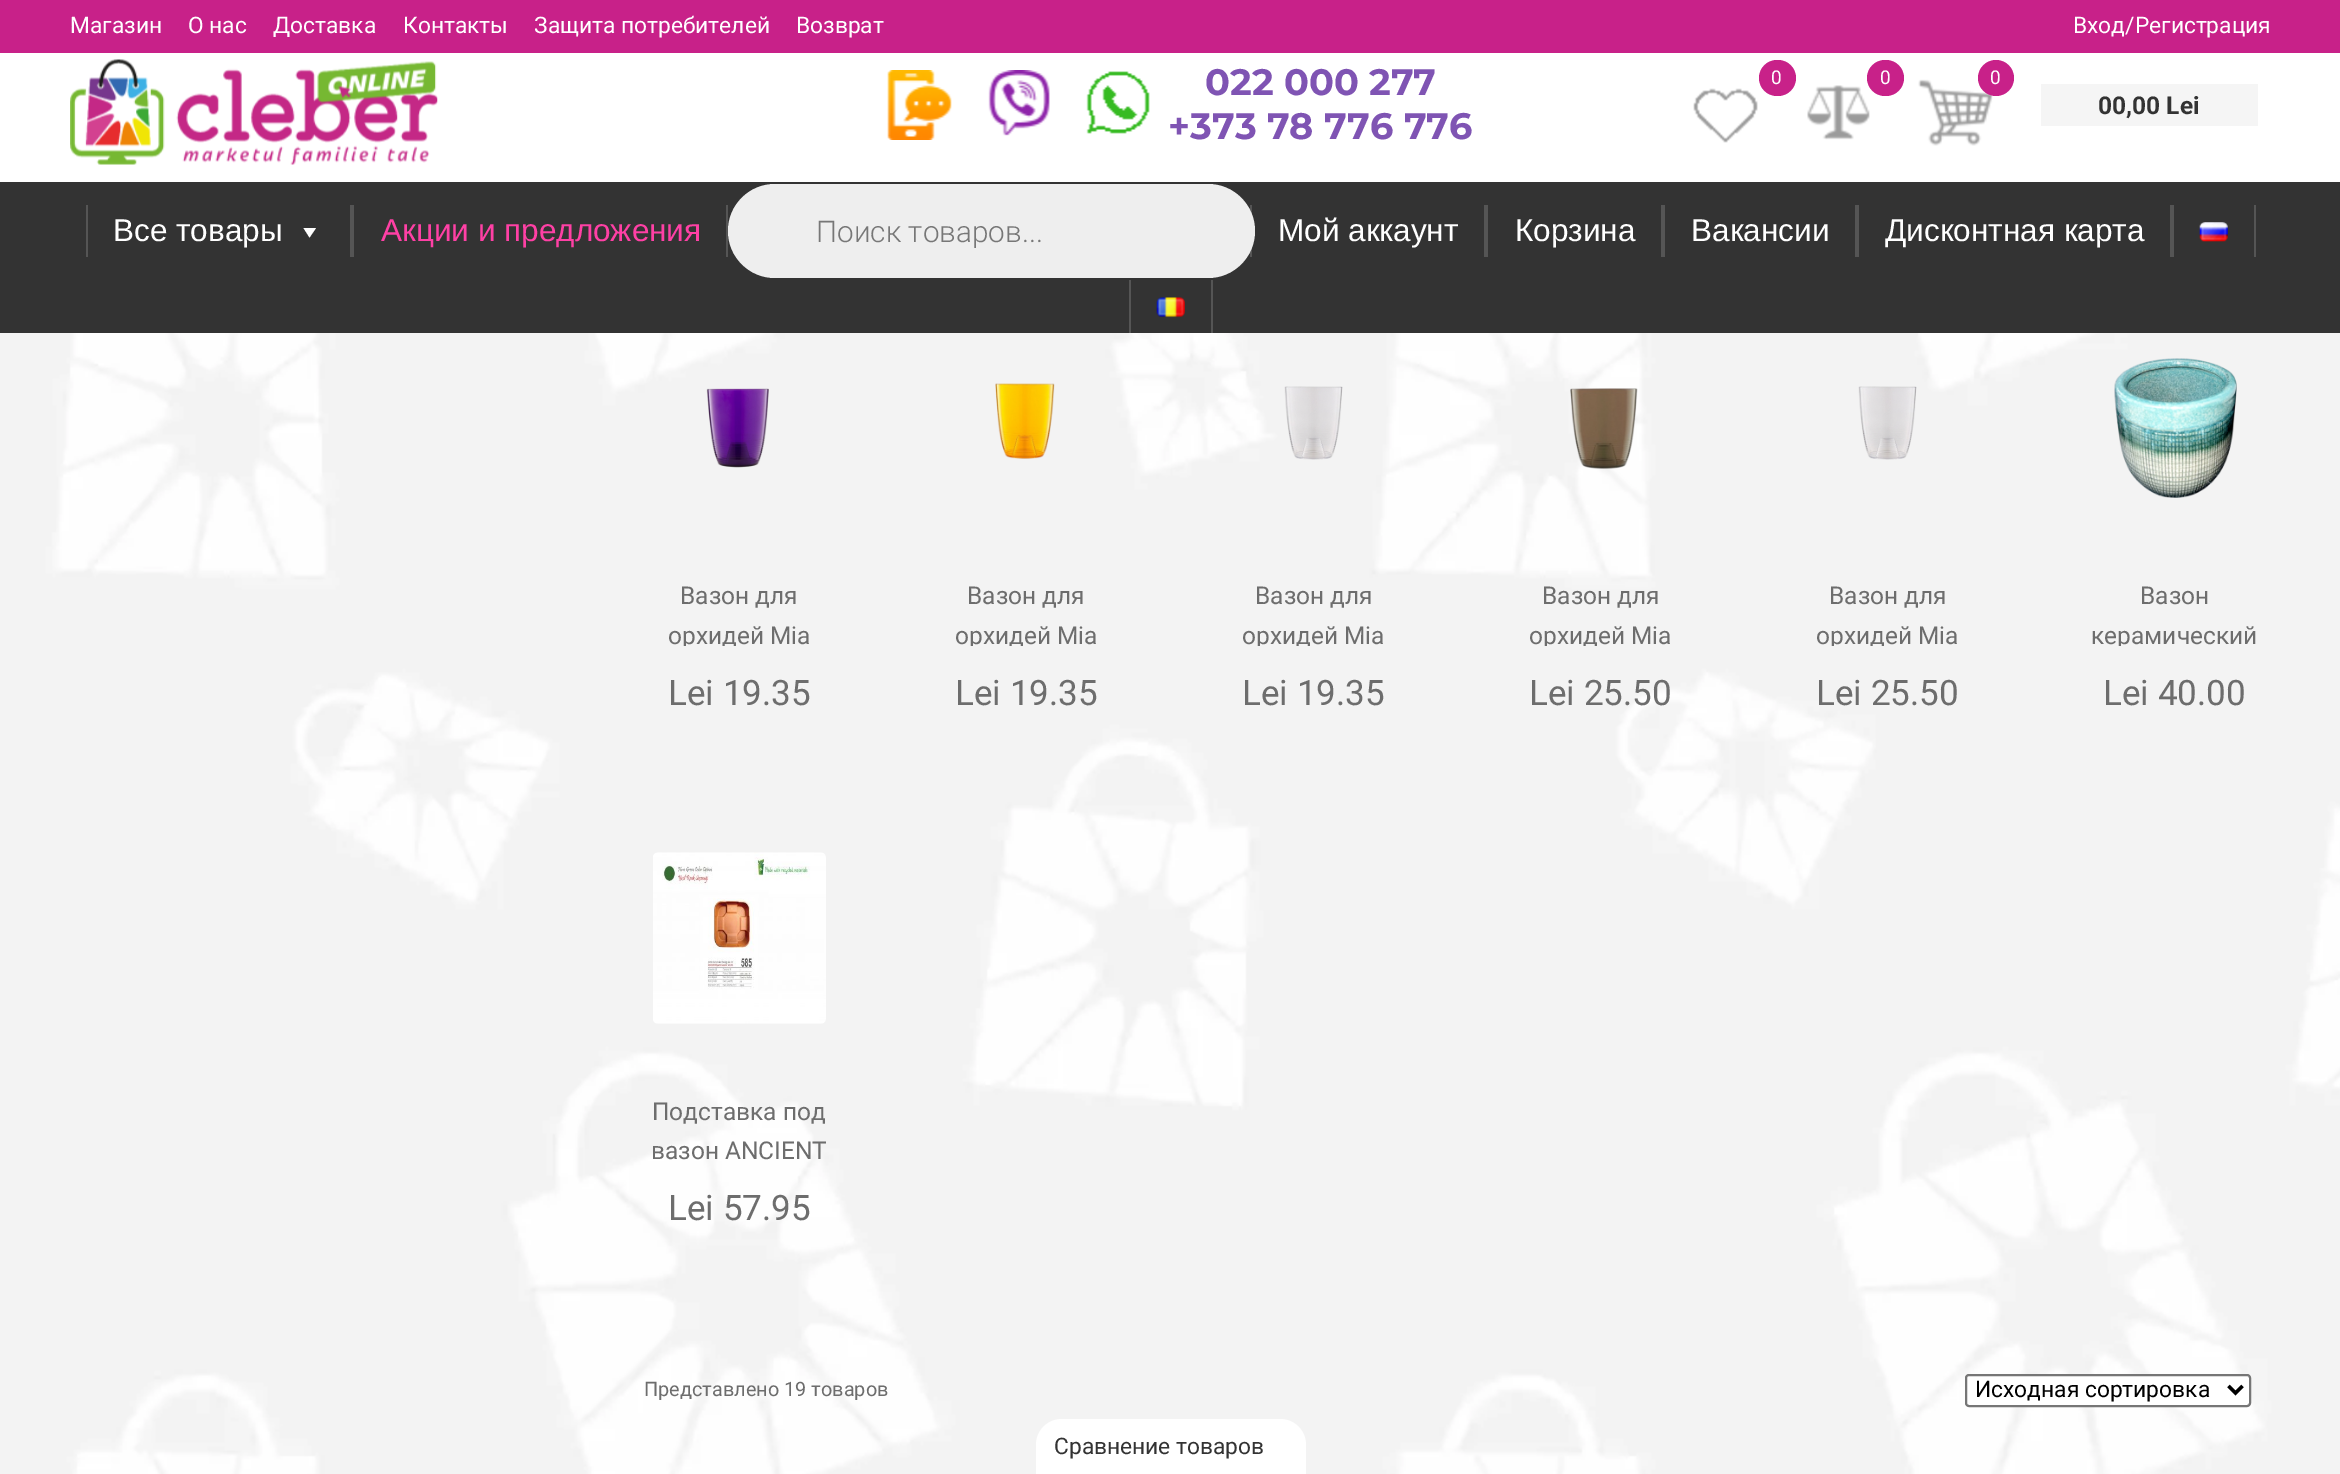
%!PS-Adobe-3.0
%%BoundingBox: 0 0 2340 1474
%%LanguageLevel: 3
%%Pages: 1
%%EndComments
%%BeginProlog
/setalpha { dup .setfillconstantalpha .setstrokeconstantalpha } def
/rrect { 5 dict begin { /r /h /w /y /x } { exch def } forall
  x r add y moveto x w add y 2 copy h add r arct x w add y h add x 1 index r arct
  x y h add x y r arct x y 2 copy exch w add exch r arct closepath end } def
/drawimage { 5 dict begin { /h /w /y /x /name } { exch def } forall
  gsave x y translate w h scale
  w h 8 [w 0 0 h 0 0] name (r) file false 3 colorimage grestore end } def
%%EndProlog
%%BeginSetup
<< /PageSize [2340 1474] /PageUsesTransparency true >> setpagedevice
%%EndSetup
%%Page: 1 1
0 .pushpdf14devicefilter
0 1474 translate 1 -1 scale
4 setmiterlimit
1 setgray
0 0 2340 1474 rectfill
(images/1.raw) 0 333 2340 1141 drawimage
0.784 0.129 0.537 setrgbcolor
0 0 2340 53 rectfill
(images/2.raw) 70 59 368 106 drawimage
(images/3.raw) 887 70 65 70 drawimage
(images/4.raw) 988 70 62 66 drawimage
(images/5.raw) 1086 71 64 63 drawimage
1759 60 37 36 18 rrect fill
(images/6.raw) 1693 88 65 55 drawimage
(images/7.raw) 1807 85 63 55 drawimage
1867 60 37 36 18 rrect fill
(images/8.raw) 1918 79 75 67 drawimage
newpath 1996 78 18 0 360 arc closepath fill
0.961 setgray
2041 84 217 42 rectfill
0.2 setgray
0 182 2340 151 rectfill
0.333 setgray
350 205 4 52 rectfill
86 205 2 52 rectfill
1 setgray
newpath 316 228 moveto 309.5 237.5 lineto 303.5 228 lineto closepath fill
0.333 setgray
726 205 2 52 rectfill
1250 205 2 52 rectfill
0.933 setgray
728 184 527 94 47 rrect fill
0.333 setgray
1484 205 4 52 rectfill
1661 205 4 52 rectfill
1855 205 4 52 rectfill
2170 205 4 52 rectfill
2254 205 2 52 rectfill
(images/9.raw) 2199 222 29 20 drawimage
1211 280 2 53 rectfill
1129 280 2 53 rectfill
(images/10.raw) 1156 297 29 21 drawimage
(images/11.raw) 706 388 63 80 drawimage
(images/12.raw) 995 383 60 76 drawimage
(images/13.raw) 1284 386 59 74 drawimage
(images/14.raw) 1570 388 68 81 drawimage
(images/13.raw) 1858 386 59 74 drawimage
(images/15.raw) 2114 358 123 140 drawimage
(images/16.raw) 653 852 173 172 drawimage
1 setgray
1966 1375 284 31 3 rrect gsave fill grestore
0.463 setgray
2 setlinewidth
stroke
0 setgray
3.5 setlinewidth
newpath 2228.5 1386 moveto 2235.5 1393 lineto 2242.5 1386 lineto stroke
0.98 setalpha
1 setgray
newpath 1062 1419 moveto 1280 1419 lineto 1294.5 1419 1306 1430.5 1306 1445 curveto 1306 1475 lineto 1036 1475 lineto 1036 1445 lineto 1036 1430.5 1047.5 1419 1062 1419 curveto closepath fill
/Roboto-Regular [22.75 0 0 -22.75 0 0] selectfont
1 setalpha
70 33 moveto (Магазин) show
188 33 moveto (О нас) show
273 33 moveto (Доставка) show
403 33 moveto (Контакты) show
534 33 moveto (Защита потребителей) show
796 33 moveto (Возврат) show
2073 33 moveto (Вход/Регистрация) show
/Montserrat-Bold [36.75 0 0 -36.75 0 0] selectfont
0.498 0.329 0.702 setrgbcolor
1205 95 moveto (022 000 277) show
1168 139 moveto (+373 78 776 776) show
/Roboto-Regular [19 0 0 -19 0 0] selectfont
1 setgray
1771 84 moveto (0) show
1880 84 moveto (0) show
1990 84 moveto (0) show
/Roboto-Bold [24.5 0 0 -24.5 0 0] selectfont
0.2 setgray
2098 114 moveto (00,00 Lei) show
/LiberationSans-Regular [31.5 0 0 -31.5 0 0] selectfont
1 setgray
113 241 moveto (Все товары) show
1 0.251 0.647 setrgbcolor
381 241 moveto (Акции и предложения) show
/Roboto-Light [29.75 0 0 -29.75 0 0] selectfont
0.467 setgray
816 242 moveto (Поиск товаров...) show
/LiberationSans-Regular [31.5 0 0 -31.5 0 0] selectfont
1 setgray
1278 241 moveto (Мой аккаунт) show
1515 241 moveto (Корзина) show
1691 241 moveto (Вакансии) show
1885 241 moveto (Дисконтная карта) show
/Roboto-Regular [24.5 0 0 -24.5 0 0] selectfont
0.427 setgray
680 604 moveto (Вазон для) show
gsave
648 576 182 70 rectclip
668 644 moveto (орхидей Mia) show
grestore
/Roboto-Regular [35 0 0 -35 0 0] selectfont
668 705 moveto (Lei 19.35) show
/Roboto-Regular [24.5 0 0 -24.5 0 0] selectfont
967 604 moveto (Вазон для) show
gsave
935 576 182 70 rectclip
955 644 moveto (орхидей Mia) show
grestore
/Roboto-Regular [35 0 0 -35 0 0] selectfont
955 705 moveto (Lei 19.35) show
/Roboto-Regular [24.5 0 0 -24.5 0 0] selectfont
1255 604 moveto (Вазон для) show
gsave
1222 576 183 70 rectclip
1242 644 moveto (орхидей Mia) show
grestore
/Roboto-Regular [35 0 0 -35 0 0] selectfont
1242 705 moveto (Lei 19.35) show
/Roboto-Regular [24.5 0 0 -24.5 0 0] selectfont
1542 604 moveto (Вазон для) show
gsave
1510 576 182 70 rectclip
1529 644 moveto (орхидей Mia) show
grestore
/Roboto-Regular [35 0 0 -35 0 0] selectfont
1529 705 moveto (Lei 25.50) show
/Roboto-Regular [24.5 0 0 -24.5 0 0] selectfont
1829 604 moveto (Вазон для) show
gsave
1797 576 182 70 rectclip
1816 644 moveto (орхидей Mia) show
grestore
/Roboto-Regular [35 0 0 -35 0 0] selectfont
1816 705 moveto (Lei 25.50) show
/Roboto-Regular [24.5 0 0 -24.5 0 0] selectfont
2140 604 moveto (Вазон) show
gsave
2084 576 182 70 rectclip
2091 644 moveto (керамический) show
grestore
/Roboto-Regular [35 0 0 -35 0 0] selectfont
2103 705 moveto (Lei 40.00) show
/Roboto-Regular [24.5 0 0 -24.5 0 0] selectfont
652 1120 moveto (Подставка под) show
651 1159 moveto (вазон ANCIENT) show
/Roboto-Regular [35 0 0 -35 0 0] selectfont
668 1220 moveto (Lei 57.95) show
/Roboto-Regular [19.9 0 0 -19.9 0 0] selectfont
644 1396 moveto (Представлено 19 товаров) show
/Roboto-Regular [22.75 0 0 -22.75 0 0] selectfont
0 setgray
1975 1397 moveto (Исходная сортировка) show
0.2 setgray
1054 1454 moveto (Сравнение товаров) show
.poppdf14devicefilter showpage
%%EOF
